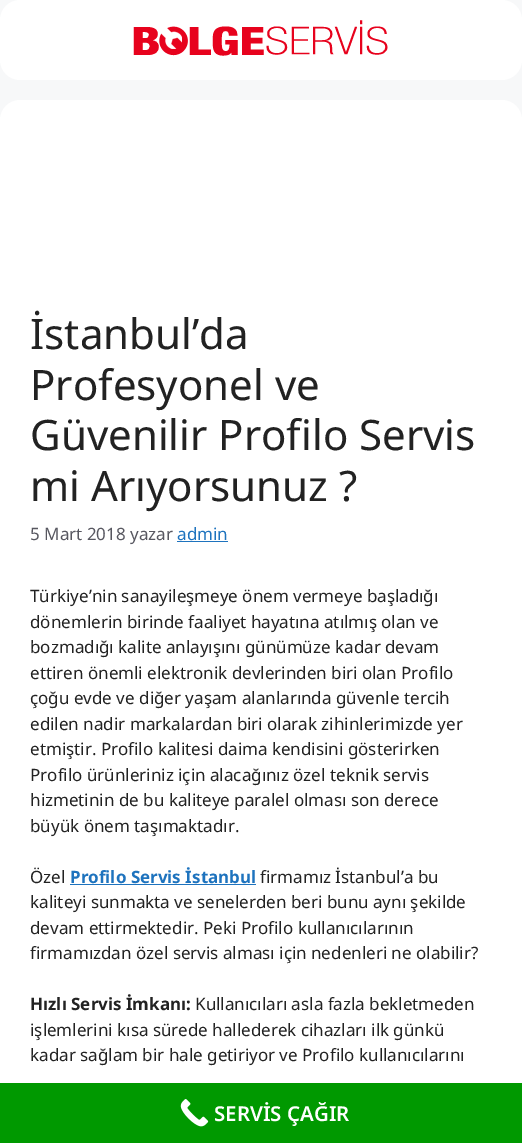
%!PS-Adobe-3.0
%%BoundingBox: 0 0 522 1143
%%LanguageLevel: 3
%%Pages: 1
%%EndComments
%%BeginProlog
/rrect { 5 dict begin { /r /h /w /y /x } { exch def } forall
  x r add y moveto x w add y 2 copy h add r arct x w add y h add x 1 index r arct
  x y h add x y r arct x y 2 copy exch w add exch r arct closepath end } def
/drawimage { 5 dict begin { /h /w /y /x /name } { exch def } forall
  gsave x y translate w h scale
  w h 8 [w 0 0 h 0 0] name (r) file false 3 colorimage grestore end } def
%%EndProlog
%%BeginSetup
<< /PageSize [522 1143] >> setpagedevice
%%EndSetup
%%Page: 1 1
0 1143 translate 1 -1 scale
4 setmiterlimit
0.969 0.973 0.976 setrgbcolor
0 0 522 1143 rectfill
1 setgray
0 0 522 80 20 rrect fill
(images/1.raw) 133 20 255 36 drawimage
0 100 522 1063 20 rrect fill
0.118 0.451 0.745 setrgbcolor
177 541 51 1 rectfill
70 884 186 1 rectfill
0 0.6 0 setrgbcolor
0 1083 522 60 rectfill
(images/2.raw) 180 1099 29 28 drawimage
/NotoSans-Regular [42 0 0 -42 0 0] selectfont
0.133 setgray
30 349 moveto (İstanbul’da) show
30 400 moveto (Profesyonel ve) show
30 450 moveto (Güvenilir Profilo Servis) show
30 501 moveto (mi Arıyorsunuz ?) show
/NotoSans-Regular [17 0 0 -17 0 0] selectfont
0.341 0.341 0.376 setrgbcolor
30 540 moveto (5 Mart 2018 yazar) show
0.118 0.451 0.745 setrgbcolor
177 540 moveto (admin) show
0.133 setgray
30 602 moveto (Türkiye’nin sanayileşmeye önem vermeye başladığı) show
30 628 moveto (dönemlerin birinde faaliyet hayatına atılmış olan ve) show
30 653 moveto (bozmadığı kalite anlayışını günümüze kadar devam) show
30 679 moveto (ettiren önemli elektronik devlerinden biri olan Profilo) show
30 704 moveto (çoğu evde ve diğer yaşam alanlarında güvenle tercih) show
30 730 moveto (edilen nadir markalardan biri olarak zihinlerimizde yer) show
30 755 moveto (etmiştir. Profilo kalitesi daima kendisini gösterirken) show
30 781 moveto (Profilo ürünleriniz için alacağınız özel teknik servis) show
30 806 moveto (hizmetinin de bu kaliteye paralel olması son derece) show
30 832 moveto (büyük önem taşımaktadır.) show
30 883 moveto (Özel) show
/NotoSans-Bold [17 0 0 -17 0 0] selectfont
0.118 0.451 0.745 setrgbcolor
70 883 moveto (Profilo Servis İstanbul) show
/NotoSans-Regular [17 0 0 -17 0 0] selectfont
0.133 setgray
260 883 moveto (firmamız İstanbul’a bu) show
30 908 moveto (kaliteyi sunmakta ve senelerden beri bunu aynı şekilde) show
30 934 moveto (devam ettirmektedir. Peki Profilo kullanıcılarının) show
30 959 moveto (firmamızdan özel servis alması için nedenleri ne olabilir?) show
/NotoSans-Bold [17 0 0 -17 0 0] selectfont
30 1010 moveto (Hızlı Servis İmkanı:) show
/NotoSans-Regular [17 0 0 -17 0 0] selectfont
195 1010 moveto (Kullanıcıları asla fazla bekletmeden) show
30 1036 moveto (işlemlerini kısa sürede hallederek cihazları ilk günkü) show
30 1061 moveto (kadar sağlam bir hale getiriyor ve Profilo kullanıcılarını) show
/NotoSans-SemiBold [20.5 0 0 -20.5 0 0] selectfont
1 setgray
214 1121 moveto (SERVİS ÇAĞIR) show
showpage
%%EOF
